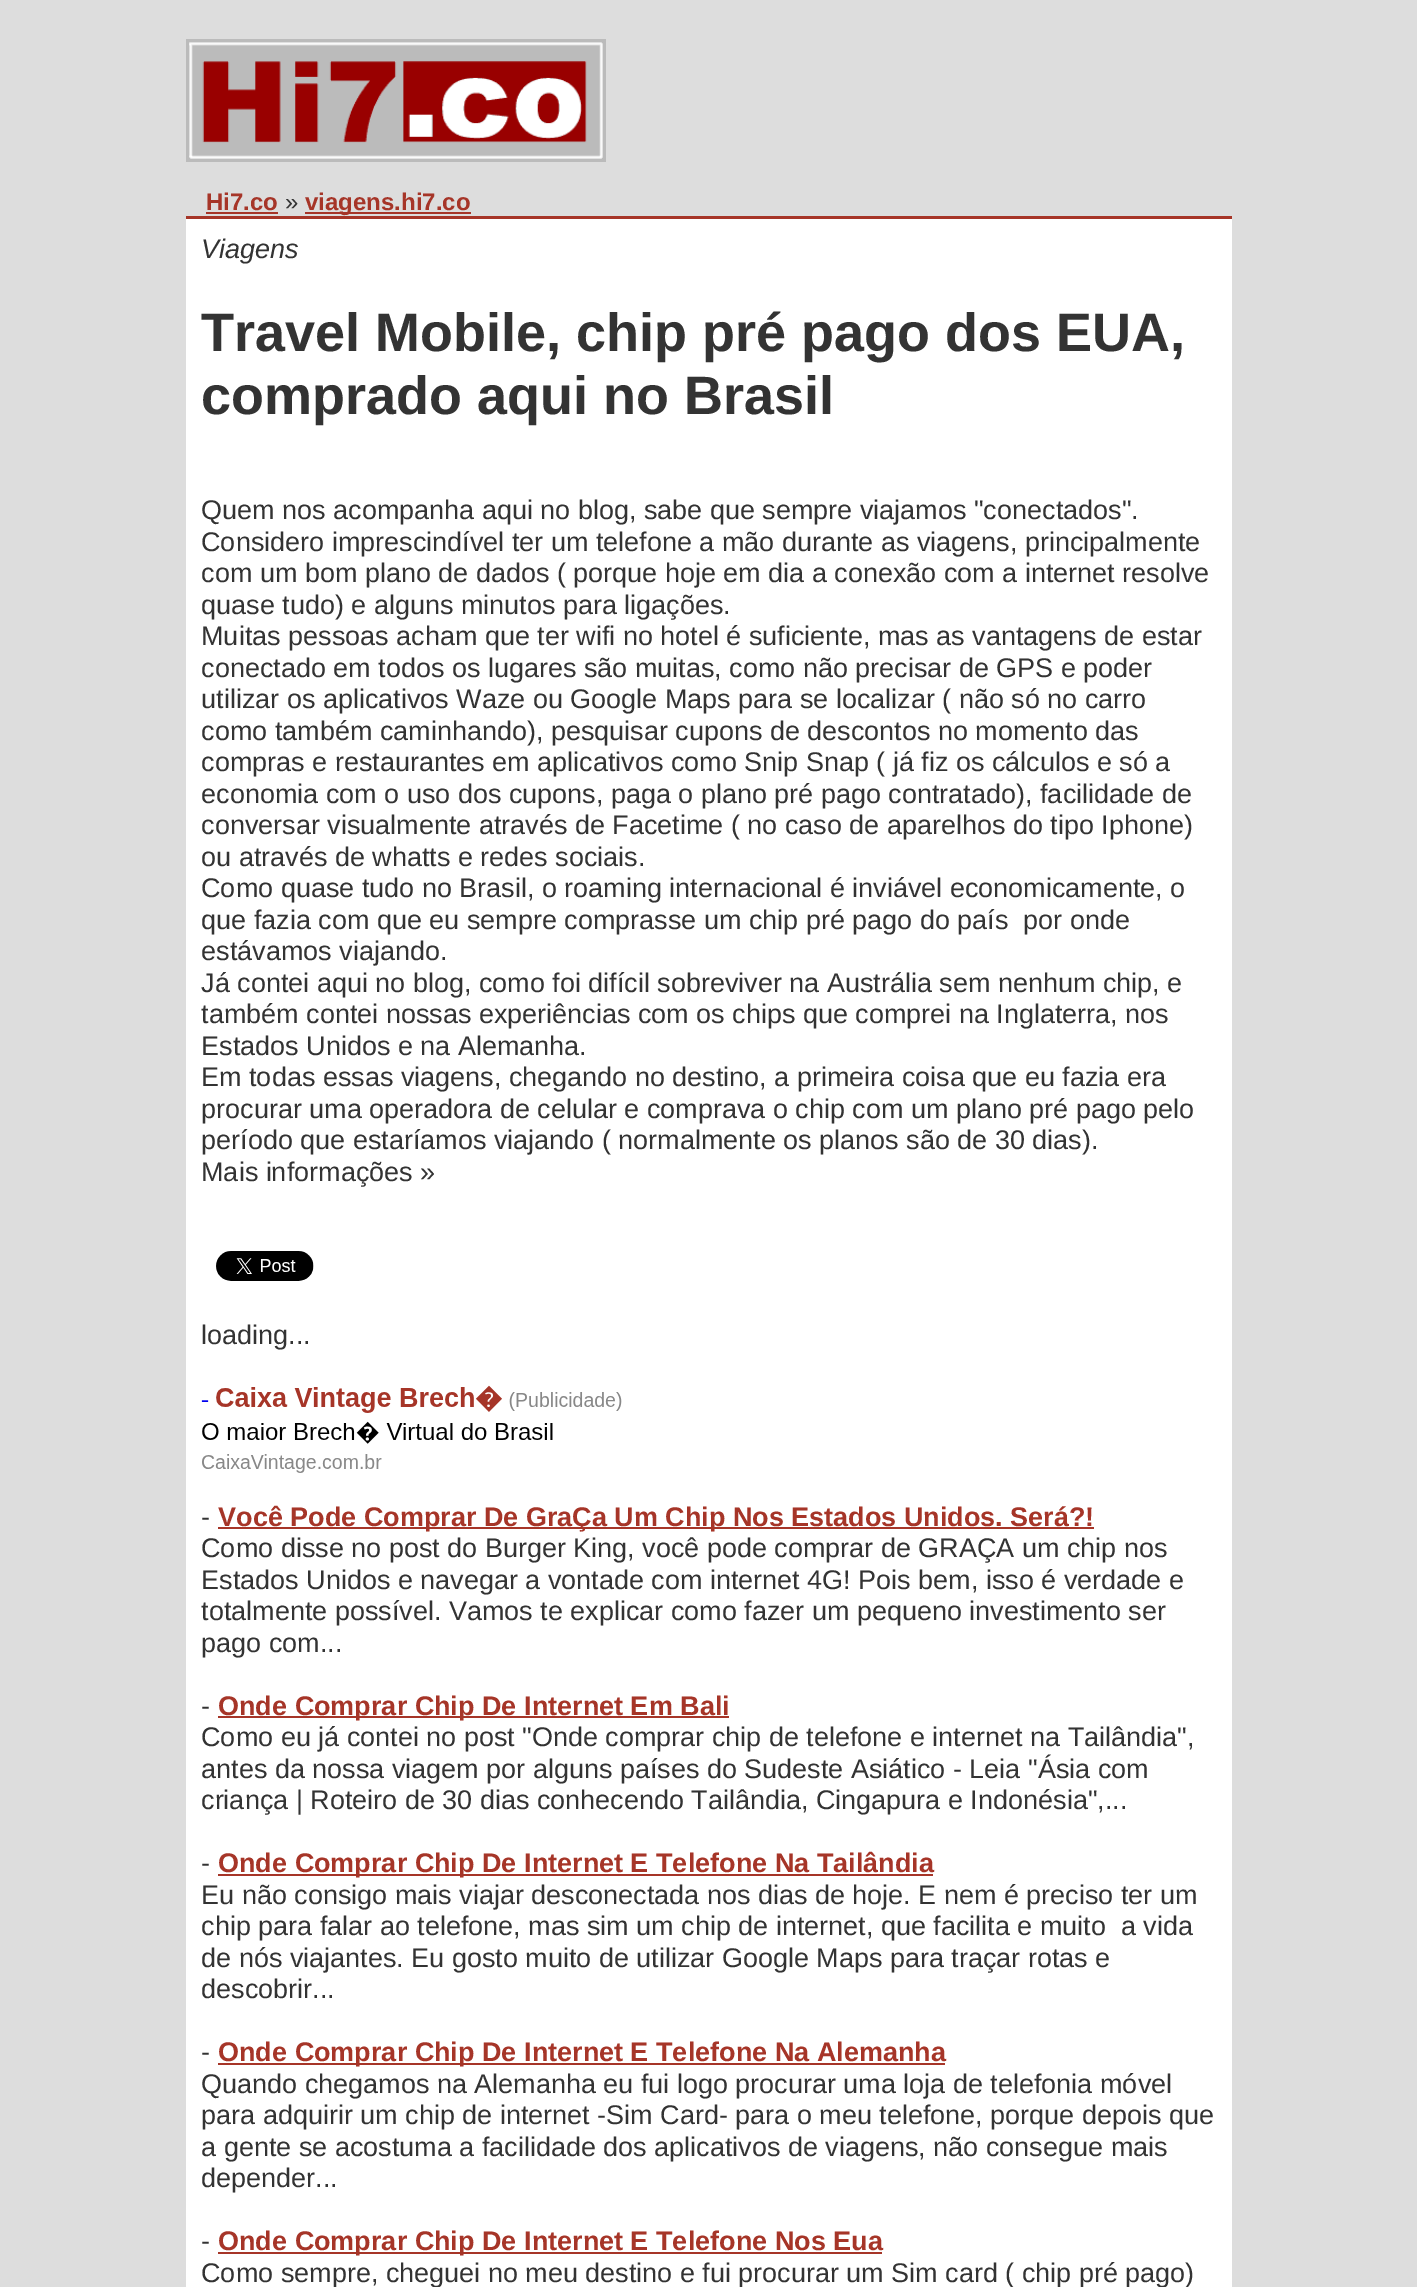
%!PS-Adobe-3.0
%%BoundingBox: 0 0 1417 2287
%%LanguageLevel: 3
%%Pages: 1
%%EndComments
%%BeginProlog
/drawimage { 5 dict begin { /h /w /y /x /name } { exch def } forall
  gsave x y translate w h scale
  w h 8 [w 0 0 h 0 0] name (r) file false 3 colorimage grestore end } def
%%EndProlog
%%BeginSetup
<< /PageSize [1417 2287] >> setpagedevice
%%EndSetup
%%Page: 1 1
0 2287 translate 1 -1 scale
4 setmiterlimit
0.867 setgray
0 0 1417 2287 rectfill
1 setgray
186 219 1046 2068 rectfill
(images/1.raw) 186 39 420 123 drawimage
0.651 0.208 0.157 setrgbcolor
206 212 72 2 rectfill
305 212 166 2 rectfill
186 216 1046 3 rectfill
(images/2.raw) 216 1251 98 30 drawimage
(images/3.raw) 201 1385 421 88 drawimage
218 1527 876 2 rectfill
218 1716 511 2 rectfill
218 1874 715 2 rectfill
218 2063 727 2 rectfill
218 2252 664 2 rectfill
/LiberationSans-Bold [24 0 0 -24 0 0] selectfont
206 210 moveto (Hi7.co) show
/LiberationSans-Regular [24 0 0 -24 0 0] selectfont
0.2 setgray
285 210 moveto (») show
/LiberationSans-Bold [24 0 0 -24 0 0] selectfont
0.651 0.208 0.157 setrgbcolor
305 210 moveto (viagens.hi7.co) show
/LiberationSans-Italic [27 0 0 -27 0 0] selectfont
0.2 setgray
201 258 moveto (Viagens) show
/LiberationSans-Bold [54 0 0 -54 0 0] selectfont
201 351 moveto (Travel Mobile, chip pré pago dos EUA,) show
201 414 moveto (comprado aqui no Brasil) show
/LiberationSans-Regular [27 0 0 -27 0 0] selectfont
201 519 moveto (Quem nos acompanha aqui no blog, sabe que sempre viajamos "conectados".) show
201 551 moveto (Considero imprescindível ter um telefone a mão durante as viagens, principalmente) show
201 582 moveto (com um bom plano de dados \( porque hoje em dia a conexão com a internet resolve) show
201 614 moveto (quase tudo\) e alguns minutos para ligações.) show
201 645 moveto (Muitas pessoas acham que ter wifi no hotel é suficiente, mas as vantagens de estar) show
201 677 moveto (conectado em todos os lugares são muitas, como não precisar de GPS e poder) show
201 708 moveto (utilizar os aplicativos Waze ou Google Maps para se localizar \( não só no carro) show
201 740 moveto (como também caminhando\), pesquisar cupons de descontos no momento das) show
201 771 moveto (compras e restaurantes em aplicativos como Snip Snap \( já fiz os cálculos e só a) show
201 803 moveto (economia com o uso dos cupons, paga o plano pré pago contratado\), facilidade de) show
201 834 moveto (conversar visualmente através de Facetime \( no caso de aparelhos do tipo Iphone\)) show
201 866 moveto (ou através de whatts e redes sociais.) show
201 897 moveto (Como quase tudo no Brasil, o roaming internacional é inviável economicamente, o) show
201 929 moveto (que fazia com que eu sempre comprasse um chip pré pago do país  por onde) show
201 960 moveto (estávamos viajando.) show
201 992 moveto (Já contei aqui no blog, como foi difícil sobreviver na Austrália sem nenhum chip, e) show
201 1023 moveto (também contei nossas experiências com os chips que comprei na Inglaterra, nos) show
201 1055 moveto (Estados Unidos e na Alemanha.) show
201 1086 moveto (Em todas essas viagens, chegando no destino, a primeira coisa que eu fazia era) show
201 1118 moveto (procurar uma operadora de celular e comprava o chip com um plano pré pago pelo) show
201 1149 moveto (período que estaríamos viajando \( normalmente os planos são de 30 dias\).) show
201 1181 moveto (Mais informações ») show
201 1344 moveto (loading...) show
201 1526 moveto (-) show
/LiberationSans-Bold [27 0 0 -27 0 0] selectfont
0.651 0.208 0.157 setrgbcolor
218 1526 moveto (Você Pode Comprar De GraÇa Um Chip Nos Estados Unidos. Será?!) show
/LiberationSans-Regular [27 0 0 -27 0 0] selectfont
0.2 setgray
201 1557 moveto (Como disse no post do Burger King, você pode comprar de GRAÇA um chip nos) show
201 1589 moveto (Estados Unidos e navegar a vontade com internet 4G! Pois bem, isso é verdade e) show
201 1620 moveto (totalmente possível. Vamos te explicar como fazer um pequeno investimento ser) show
201 1652 moveto (pago com...) show
201 1715 moveto (-) show
/LiberationSans-Bold [27 0 0 -27 0 0] selectfont
0.651 0.208 0.157 setrgbcolor
218 1715 moveto (Onde Comprar Chip De Internet Em Bali) show
/LiberationSans-Regular [27 0 0 -27 0 0] selectfont
0.2 setgray
201 1746 moveto (Como eu já contei no post "Onde comprar chip de telefone e internet na Tailândia",) show
201 1778 moveto (antes da nossa viagem por alguns países do Sudeste Asiático - Leia "Ásia com) show
201 1809 moveto (criança | Roteiro de 30 dias conhecendo Tailândia, Cingapura e Indonésia",...) show
201 1872 moveto (-) show
/LiberationSans-Bold [27 0 0 -27 0 0] selectfont
0.651 0.208 0.157 setrgbcolor
218 1872 moveto (Onde Comprar Chip De Internet E Telefone Na Tailândia) show
/LiberationSans-Regular [27 0 0 -27 0 0] selectfont
0.2 setgray
201 1904 moveto (Eu não consigo mais viajar desconectada nos dias de hoje. E nem é preciso ter um) show
201 1935 moveto (chip para falar ao telefone, mas sim um chip de internet, que facilita e muito  a vida) show
201 1967 moveto (de nós viajantes. Eu gosto muito de utilizar Google Maps para traçar rotas e) show
201 1998 moveto (descobrir...) show
201 2061 moveto (-) show
/LiberationSans-Bold [27 0 0 -27 0 0] selectfont
0.651 0.208 0.157 setrgbcolor
218 2061 moveto (Onde Comprar Chip De Internet E Telefone Na Alemanha) show
/LiberationSans-Regular [27 0 0 -27 0 0] selectfont
0.2 setgray
201 2093 moveto (Quando chegamos na Alemanha eu fui logo procurar uma loja de telefonia móvel) show
201 2124 moveto (para adquirir um chip de internet -Sim Card- para o meu telefone, porque depois que) show
201 2156 moveto (a gente se acostuma a facilidade dos aplicativos de viagens, não consegue mais) show
201 2187 moveto (depender...) show
201 2250 moveto (-) show
/LiberationSans-Bold [27 0 0 -27 0 0] selectfont
0.651 0.208 0.157 setrgbcolor
218 2250 moveto (Onde Comprar Chip De Internet E Telefone Nos Eua) show
/LiberationSans-Regular [27 0 0 -27 0 0] selectfont
0.2 setgray
201 2282 moveto (Como sempre, cheguei no meu destino e fui procurar um Sim card \( chip pré pago\)) show
showpage
%%EOF
